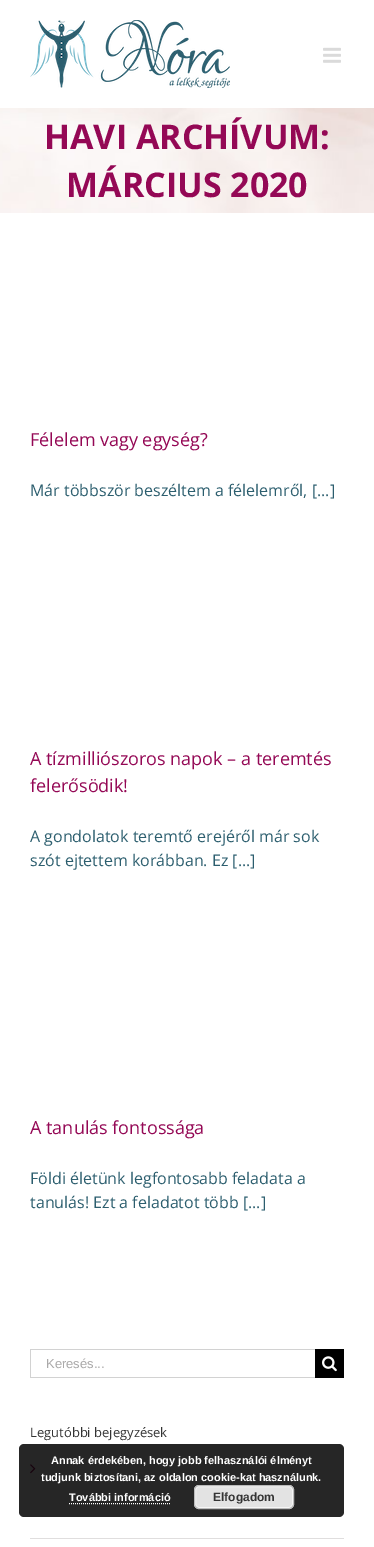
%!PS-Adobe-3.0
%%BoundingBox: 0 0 374 1547
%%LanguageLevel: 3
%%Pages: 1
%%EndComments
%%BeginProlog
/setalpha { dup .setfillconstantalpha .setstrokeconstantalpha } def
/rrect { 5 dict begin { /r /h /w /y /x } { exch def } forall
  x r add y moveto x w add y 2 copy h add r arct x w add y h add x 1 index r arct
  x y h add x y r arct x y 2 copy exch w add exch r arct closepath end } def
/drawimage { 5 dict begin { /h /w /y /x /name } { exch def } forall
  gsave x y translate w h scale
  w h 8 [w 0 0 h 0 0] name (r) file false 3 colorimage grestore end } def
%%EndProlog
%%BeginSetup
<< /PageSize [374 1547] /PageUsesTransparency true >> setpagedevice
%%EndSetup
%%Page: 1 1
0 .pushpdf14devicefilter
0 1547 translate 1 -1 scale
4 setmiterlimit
1 setgray
0 0 374 1547 rectfill
(images/1.raw) 30 20 200 68 drawimage
(images/2.raw) 323 47 18 16 drawimage
(images/3.raw) 0 108 374 105 drawimage
0.824 setgray
30 1349 285 1 rectfill
30 1377 285 1 rectfill
30 1349 1 29 rectfill
0 setgray
315 1349 29 29 rectfill
(images/4.raw) 322 1356 15 16 drawimage
0.878 0.871 0.871 setrgbcolor
30 1538 314 1 rectfill
(images/5.raw) 30 1464 6 10 drawimage
0.85 setalpha
0 setgray
19 1444 325 73 5 rrect fill
1 setalpha
1 setgray
[1 1] 0 setdash
newpath 69 1503.5 moveto 171 1503.5 lineto stroke
0.89 setgray
194 1485 100 24 5 rrect fill
0.965 setgray
[] 0 setdash
195.5 1486.5 97 21 3.5 rrect stroke
0.733 setgray
194.5 1485.5 99 23 4.5 rrect stroke
/OpenSans-Bold [34 0 0 -34 0 0] selectfont
0.58 0.031 0.333 setrgbcolor
44 149 moveto (HAVI ARCHÍVUM:) show
66 197 moveto (MÁRCIUS 2020) show
/OpenSans-Regular [18 0 0 -18 0 0] selectfont
30 446 moveto (Félelem vagy egység?) show
/OpenSans-Regular [16 0 0 -16 0 0] selectfont
0.173 0.369 0.431 setrgbcolor
30 496 moveto (Már többször beszéltem a félelemről, [...]) show
/OpenSans-Regular [18 0 0 -18 0 0] selectfont
0.58 0.031 0.333 setrgbcolor
30 765 moveto (A tízmilliószoros napok – a teremtés) show
30 792 moveto (felerősödik!) show
/OpenSans-Regular [16 0 0 -16 0 0] selectfont
0.173 0.369 0.431 setrgbcolor
30 842 moveto (A gondolatok teremtő erejéről már sok) show
30 866 moveto (szót ejtettem korábban. Ez [...]) show
/OpenSans-Regular [18 0 0 -18 0 0] selectfont
0.58 0.031 0.333 setrgbcolor
30 1134 moveto (A tanulás fontossága) show
/OpenSans-Regular [16 0 0 -16 0 0] selectfont
0.173 0.369 0.431 setrgbcolor
30 1184 moveto (Földi életünk legfontosabb feladata a) show
30 1208 moveto (tanulás! Ezt a feladatot több [...]) show
/LiberationSans-Regular [13 0 0 -13 0 0] selectfont
0.667 0.663 0.663 setrgbcolor
46 1368 moveto (Keresés...) show
/OpenSans-Regular [13 0 0 -13 0 0] selectfont
0.2 setgray
30 1437 moveto (Legutóbbi bejegyzések) show
/LiberationSans-Bold [11 0 0 -11 0 0] selectfont
1 setgray
51 1464 moveto (Annak érdekében, hogy jobb felhasználói élményt) show
41 1481 moveto (tudjunk biztosítani, az oldalon cookie-kat használunk.) show
69 1501 moveto (További információ) show
/LiberationSans-Bold [12 0 0 -12 0 0] selectfont
0.2 setgray
213 1501 moveto (Elfogadom) show
.poppdf14devicefilter showpage
%%EOF
